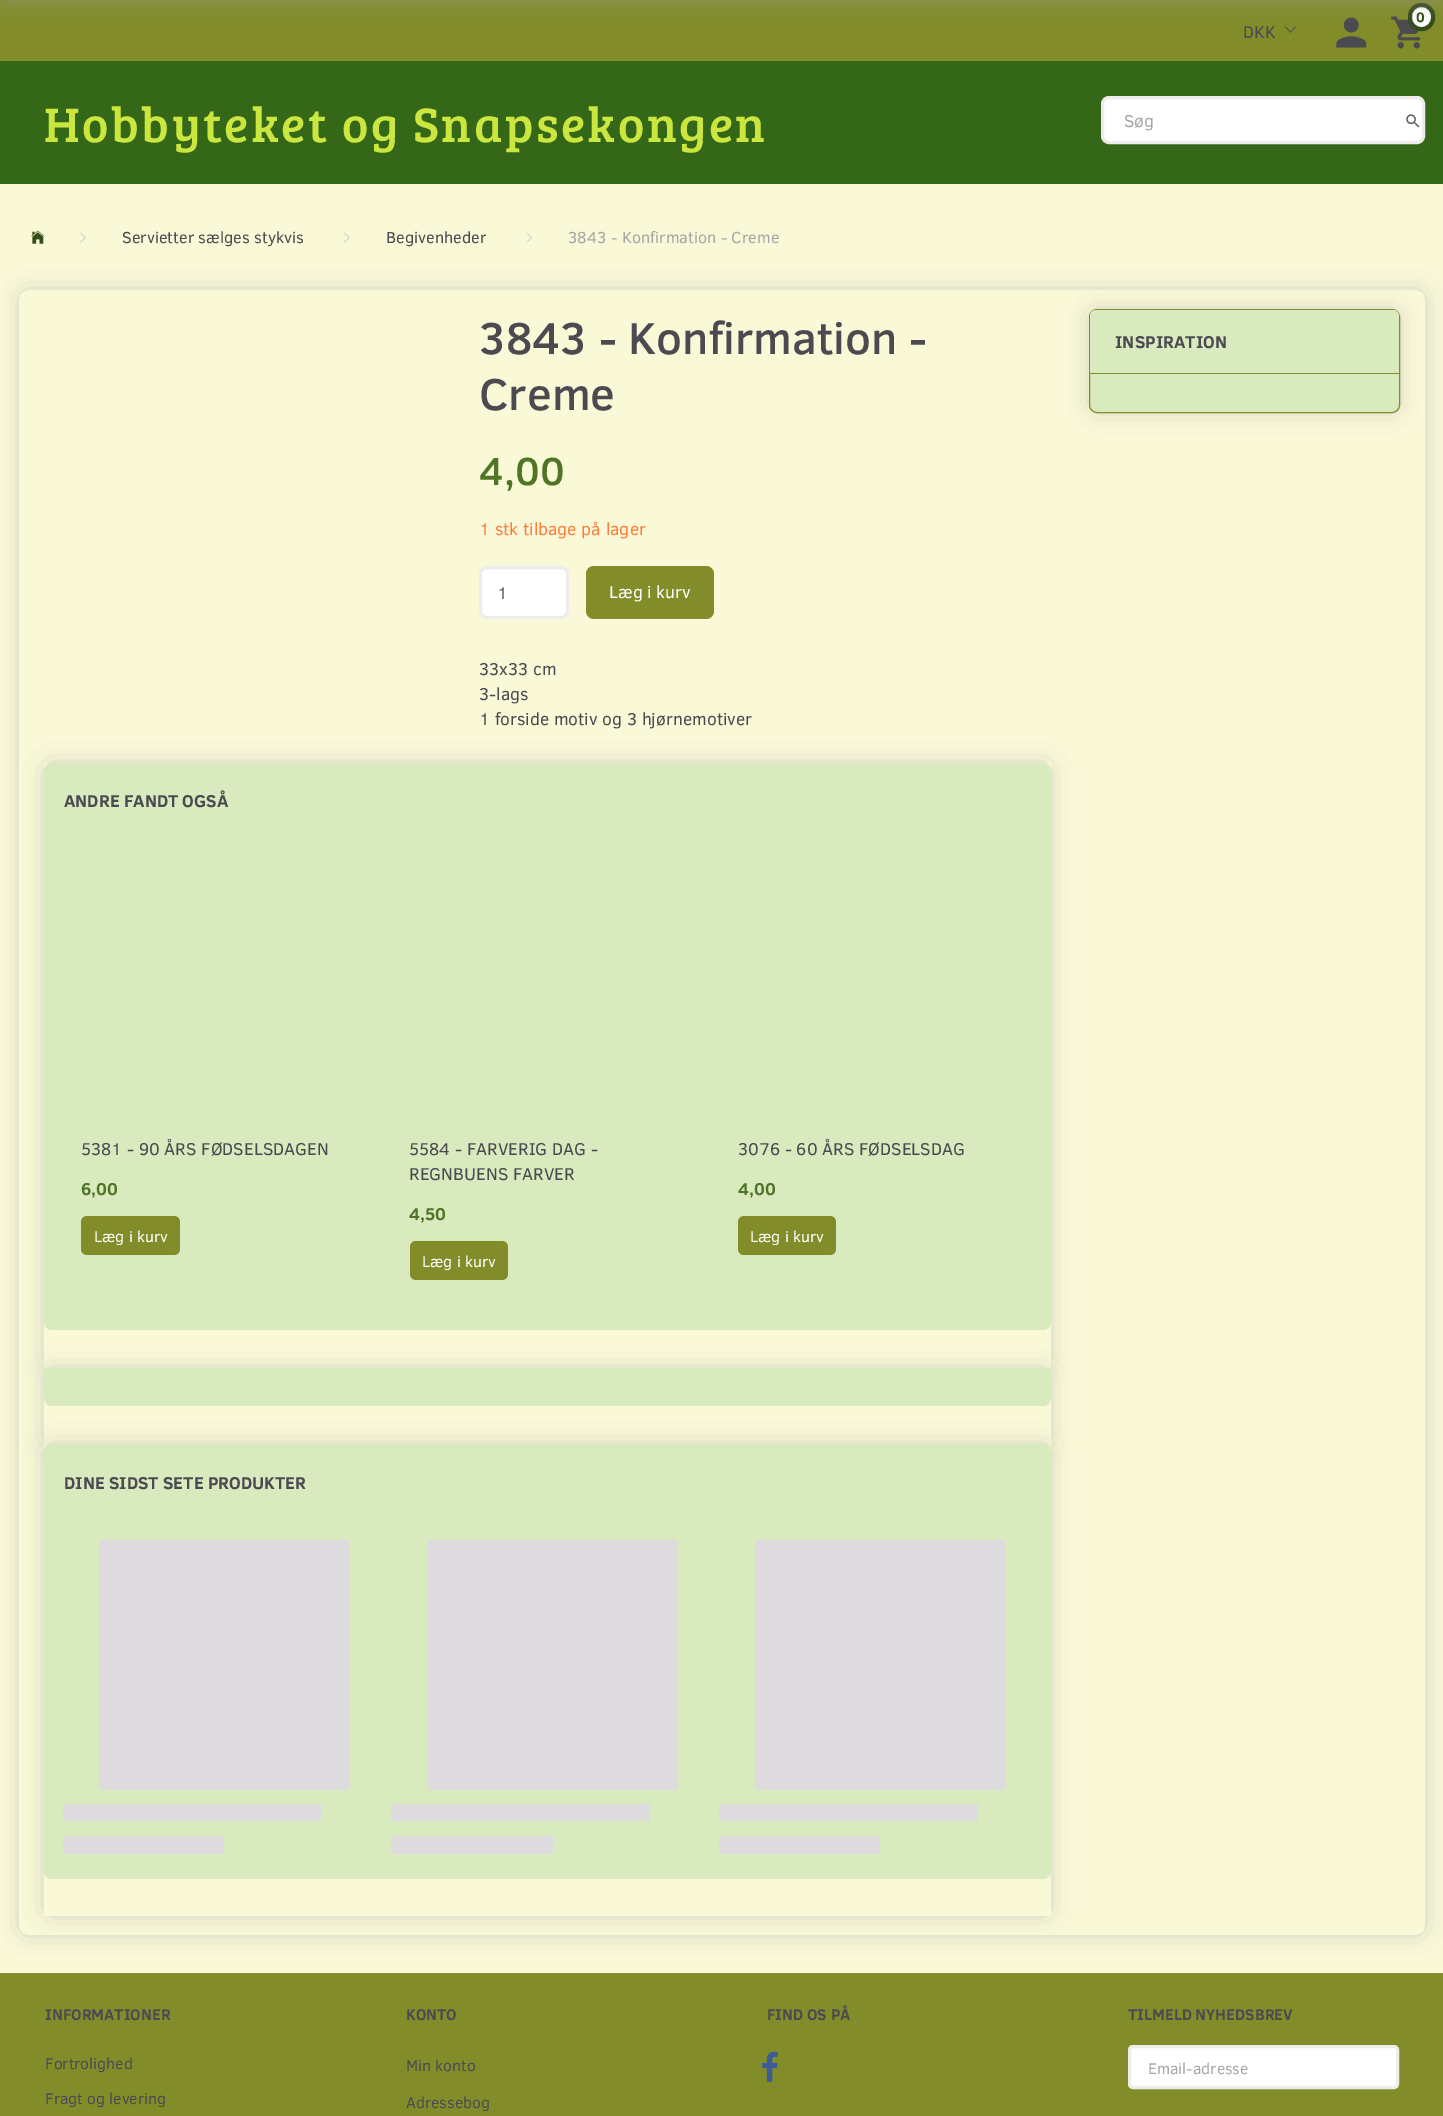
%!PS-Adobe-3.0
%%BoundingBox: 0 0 1443 2116
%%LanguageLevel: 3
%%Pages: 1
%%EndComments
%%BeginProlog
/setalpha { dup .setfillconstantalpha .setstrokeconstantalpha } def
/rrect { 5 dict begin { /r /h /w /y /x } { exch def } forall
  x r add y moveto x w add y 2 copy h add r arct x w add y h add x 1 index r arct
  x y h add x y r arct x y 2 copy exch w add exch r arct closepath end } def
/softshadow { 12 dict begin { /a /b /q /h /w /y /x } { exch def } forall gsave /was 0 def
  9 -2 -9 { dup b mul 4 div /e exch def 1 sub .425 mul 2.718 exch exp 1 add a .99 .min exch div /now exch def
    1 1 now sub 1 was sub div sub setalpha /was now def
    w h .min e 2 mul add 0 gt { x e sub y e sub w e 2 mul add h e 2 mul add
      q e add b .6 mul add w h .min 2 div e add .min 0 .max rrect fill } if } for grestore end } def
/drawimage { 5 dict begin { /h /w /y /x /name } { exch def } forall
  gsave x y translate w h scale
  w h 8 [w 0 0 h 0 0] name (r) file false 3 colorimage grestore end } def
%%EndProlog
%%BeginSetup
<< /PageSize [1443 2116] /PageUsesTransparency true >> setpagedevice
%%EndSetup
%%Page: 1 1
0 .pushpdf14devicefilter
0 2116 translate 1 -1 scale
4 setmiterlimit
0.51 0.553 0.165 setrgbcolor
0 0 1443 2116 rectfill
(images/1.raw) 1285 26 11 7 drawimage
(images/2.raw) 1336 17 31 31 drawimage
(images/3.raw) 1391 16 29 33 drawimage
1 setgray
1410 5 23 24 11 rrect gsave fill grestore
0.208 0.302 0.098 setrgbcolor
4 setlinewidth
stroke
0.58 setgray
6 -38 1432 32 0 12.5 1 softshadow
0.204 0.404 0.094 setrgbcolor
0 61 1443 123 rectfill
1 setgray
1102.5 97.5 321 45 6.5 rrect gsave fill grestore
0.929 setgray
3 setlinewidth
stroke
(images/4.raw) 1406 114 14 14 drawimage
0.976 0.973 0.843 setrgbcolor
0 184 1443 1789 rectfill
(images/5.raw) 31 230 14 14 drawimage
(images/6.raw) 80 232 6 11 drawimage
(images/7.raw) 344 232 6 11 drawimage
(images/8.raw) 526 232 7 11 drawimage
gsave
newpath 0 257 moveto 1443 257 lineto 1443 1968 lineto 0 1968 lineto closepath 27 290 moveto 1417 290 lineto 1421.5 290 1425 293.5 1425 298 curveto 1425 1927 lineto 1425 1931.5 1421.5 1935 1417 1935 curveto 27 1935 lineto 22.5 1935 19 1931.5 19 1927 curveto 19 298 lineto 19 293.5 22.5 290 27 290 curveto closepath eoclip newpath
0.722 setgray
25 296 1394 1633 1 12.5 1 softshadow
grestore
1 setgray
480.5 567.5 87 50 6.5 rrect gsave fill grestore
0.929 setgray
stroke
0.51 0.553 0.165 setrgbcolor
586 566 128 53 8 rrect fill
gsave
newpath 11 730 moveto 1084 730 lineto 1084 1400 lineto 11 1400 lineto closepath 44 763 moveto 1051 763 lineto 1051 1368 lineto 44 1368 lineto closepath eoclip newpath
0.722 setgray
50 769 995 592 0 12.5 1 softshadow
grestore
0.851 0.918 0.745 setrgbcolor
newpath 52 763 moveto 1043 763 lineto 1047.5 763 1051 766.5 1051 771 curveto 1051 840 lineto 44 840 lineto 44 771 lineto 44 766.5 47.5 763 52 763 curveto closepath fill
newpath 52 763 moveto 248 763 lineto 248 840 lineto 44 840 lineto 44 771 lineto 44 766.5 47.5 763 52 763 curveto closepath fill
newpath 44 840 moveto 1051 840 lineto 1051 1322 lineto 1051 1326.5 1047.5 1330 1043 1330 curveto 52 1330 lineto 47.5 1330 44 1326.5 44 1322 curveto closepath fill
0.51 0.553 0.165 setrgbcolor
81 1216 99 39 6 rrect fill
410 1241 98 39 6 rrect fill
738 1216 98 39 6 rrect fill
gsave
newpath 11 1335 moveto 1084 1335 lineto 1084 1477 lineto 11 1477 lineto closepath 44 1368 moveto 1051 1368 lineto 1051 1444 lineto 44 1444 lineto closepath eoclip newpath
0.722 setgray
50 1374 995 64 0 12.5 1 softshadow
grestore
0.851 0.918 0.745 setrgbcolor
newpath 45 1368 moveto 1050 1368 lineto 1050.5 1368 1051 1368.5 1051 1369 curveto 44 1369 lineto 44 1368.5 44.5 1368 45 1368 curveto closepath fill
newpath 44 1369 moveto 1051 1369 lineto 1051 1398 lineto 1051 1402.5 1047.5 1406 1043 1406 curveto 52 1406 lineto 47.5 1406 44 1402.5 44 1398 curveto closepath fill
gsave
newpath 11 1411 moveto 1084 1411 lineto 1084 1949 lineto 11 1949 lineto closepath 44 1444 moveto 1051 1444 lineto 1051 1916 lineto 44 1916 lineto closepath eoclip newpath
0.722 setgray
50 1450 995 460 0 12.5 1 softshadow
grestore
newpath 52 1444 moveto 1043 1444 lineto 1047.5 1444 1051 1447.5 1051 1452 curveto 1051 1521 lineto 44 1521 lineto 44 1452 lineto 44 1447.5 47.5 1444 52 1444 curveto closepath fill
newpath 52 1444 moveto 326 1444 lineto 326 1521 lineto 44 1521 lineto 44 1452 lineto 44 1447.5 47.5 1444 52 1444 curveto closepath fill
newpath 44 1521 moveto 1051 1521 lineto 1051 1871 lineto 1051 1875.5 1047.5 1879 1043 1879 curveto 52 1879 lineto 47.5 1879 44 1875.5 44 1871 curveto closepath fill
0.867 0.859 0.867 setrgbcolor
99 1540 250 250 rectfill
63 1804 258 17 rectfill
63 1836 161 18 rectfill
428 1540 250 250 rectfill
391 1804 259 17 rectfill
391 1836 162 18 rectfill
755 1540 250 250 rectfill
719 1804 259 17 rectfill
719 1836 161 18 rectfill
0.722 setgray
1095 315 299 91 1 12.5 1 softshadow
0.851 0.918 0.745 setrgbcolor
1089.5 309.5 310 103 7.5 rrect gsave fill grestore
0.51 0.553 0.165 setrgbcolor
1 setlinewidth
stroke
0.851 0.918 0.745 setrgbcolor
newpath 1096 310 moveto 1393 310 lineto 1396.5 310 1399 312.5 1399 316 curveto 1399 374 lineto 1090 374 lineto 1090 316 lineto 1090 312.5 1092.5 310 1096 310 curveto closepath fill
0.51 0.553 0.165 setrgbcolor
1090 373 309 1 rectfill
(images/9.raw) 762 2051 16 31 drawimage
1 setgray
1129.5 2046.5 268 41 3.5 rrect gsave fill grestore
0.929 setgray
3 setlinewidth
stroke
/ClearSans-Regular [17.5 0 0 -17.5 0 0] selectfont
0.294 0.29 0.314 setrgbcolor
1243 38 moveto (DKK) show
/ClearSans-Bold [14 0 0 -14 0 0] selectfont
0.208 0.302 0.098 setrgbcolor
1416 22 moveto (0) show
/BreeSerif-Regular [50 0 0 -50 0 0] selectfont
0.796 0.902 0.243 setrgbcolor
44 142 moveto 2.5 0 (Hobbyteket og Snapsekongen) ashow
/ClearSans-Regular [17.5 0 0 -17.5 0 0] selectfont
0.651 setgray
1124 127 moveto (Søg) show
/ClearSans-Regular [16.25 0 0 -16.25 0 0] selectfont
0.294 0.29 0.314 setrgbcolor
122 243 moveto (Servietter sælges stykvis) show
386 243 moveto (Begivenheder) show
0.651 setgray
568 243 moveto (3843 - Konfirmation - Creme) show
/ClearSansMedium-Medium [45.5 0 0 -45.5 0 0] selectfont
0.294 0.29 0.314 setrgbcolor
479 354 moveto (3843 - Konfirmation -) show
479 410 moveto (Creme) show
/ClearSansMedium-Medium [40 0 0 -40 0 0] selectfont
0.318 0.459 0.149 setrgbcolor
479 485 moveto (4,00) show
/ClearSans-Regular [17.5 0 0 -17.5 0 0] selectfont
0.996 0.49 0.235 setrgbcolor
479 535 moveto (1 stk tilbage på lager) show
0.361 0.357 0.388 setrgbcolor
497 599 moveto (1) show
1 setgray
609 598 moveto (Læg i kurv) show
0.294 0.29 0.314 setrgbcolor
479 675 moveto (33x33 cm) show
479 700 moveto (3-lags) show
479 725 moveto (1 forside motiv og 3 hjørnemotiver) show
/ClearSans-Bold [17.5 0 0 -17.5 0 0] selectfont
64 807 moveto (ANDRE FANDT OGSÅ) show
/ClearSans-Regular [17.5 0 0 -17.5 0 0] selectfont
81 1155 moveto (5381 - 90 ÅRS FØDSELSDAGEN) show
/ClearSans-Bold [17.5 0 0 -17.5 0 0] selectfont
0.318 0.459 0.149 setrgbcolor
81 1195 moveto (6,00) show
/ClearSans-Regular [15.75 0 0 -15.75 0 0] selectfont
1 setgray
94 1242 moveto (Læg i kurv) show
/ClearSans-Regular [17.5 0 0 -17.5 0 0] selectfont
0.294 0.29 0.314 setrgbcolor
409 1155 moveto (5584 - FARVERIG DAG -) show
409 1180 moveto (REGNBUENS FARVER) show
/ClearSans-Bold [17.5 0 0 -17.5 0 0] selectfont
0.318 0.459 0.149 setrgbcolor
409 1220 moveto (4,50) show
/ClearSans-Regular [15.75 0 0 -15.75 0 0] selectfont
1 setgray
422 1267 moveto (Læg i kurv) show
/ClearSans-Regular [17.5 0 0 -17.5 0 0] selectfont
0.294 0.29 0.314 setrgbcolor
738 1155 moveto (3076 - 60 ÅRS FØDSELSDAG) show
/ClearSans-Bold [17.5 0 0 -17.5 0 0] selectfont
0.318 0.459 0.149 setrgbcolor
738 1195 moveto (4,00) show
/ClearSans-Regular [15.75 0 0 -15.75 0 0] selectfont
1 setgray
750 1242 moveto (Læg i kurv) show
/ClearSans-Bold [17.5 0 0 -17.5 0 0] selectfont
0.294 0.29 0.314 setrgbcolor
64 1489 moveto (DINE SIDST SETE PRODUKTER) show
1115 348 moveto (INSPIRATION) show
/ClearSans-Bold [15.75 0 0 -15.75 0 0] selectfont
45 2020 moveto (INFORMATIONER) show
/ClearSans-Regular [15.75 0 0 -15.75 0 0] selectfont
45 2069 moveto (Fortrolighed) show
45 2104 moveto (Fragt og levering) show
/ClearSans-Bold [15.75 0 0 -15.75 0 0] selectfont
406 2020 moveto (KONTO) show
/ClearSans-Regular [15.75 0 0 -15.75 0 0] selectfont
406 2071 moveto (Min konto) show
406 2108 moveto (Adressebog) show
/ClearSans-Bold [15.75 0 0 -15.75 0 0] selectfont
767 2020 moveto (FIND OS PÅ) show
1128 2020 moveto (TILMELD NYHEDSBREV) show
/ClearSans-Regular [15.75 0 0 -15.75 0 0] selectfont
0.651 setgray
1148 2074 moveto (Email-adresse) show
.poppdf14devicefilter showpage
%%EOF
